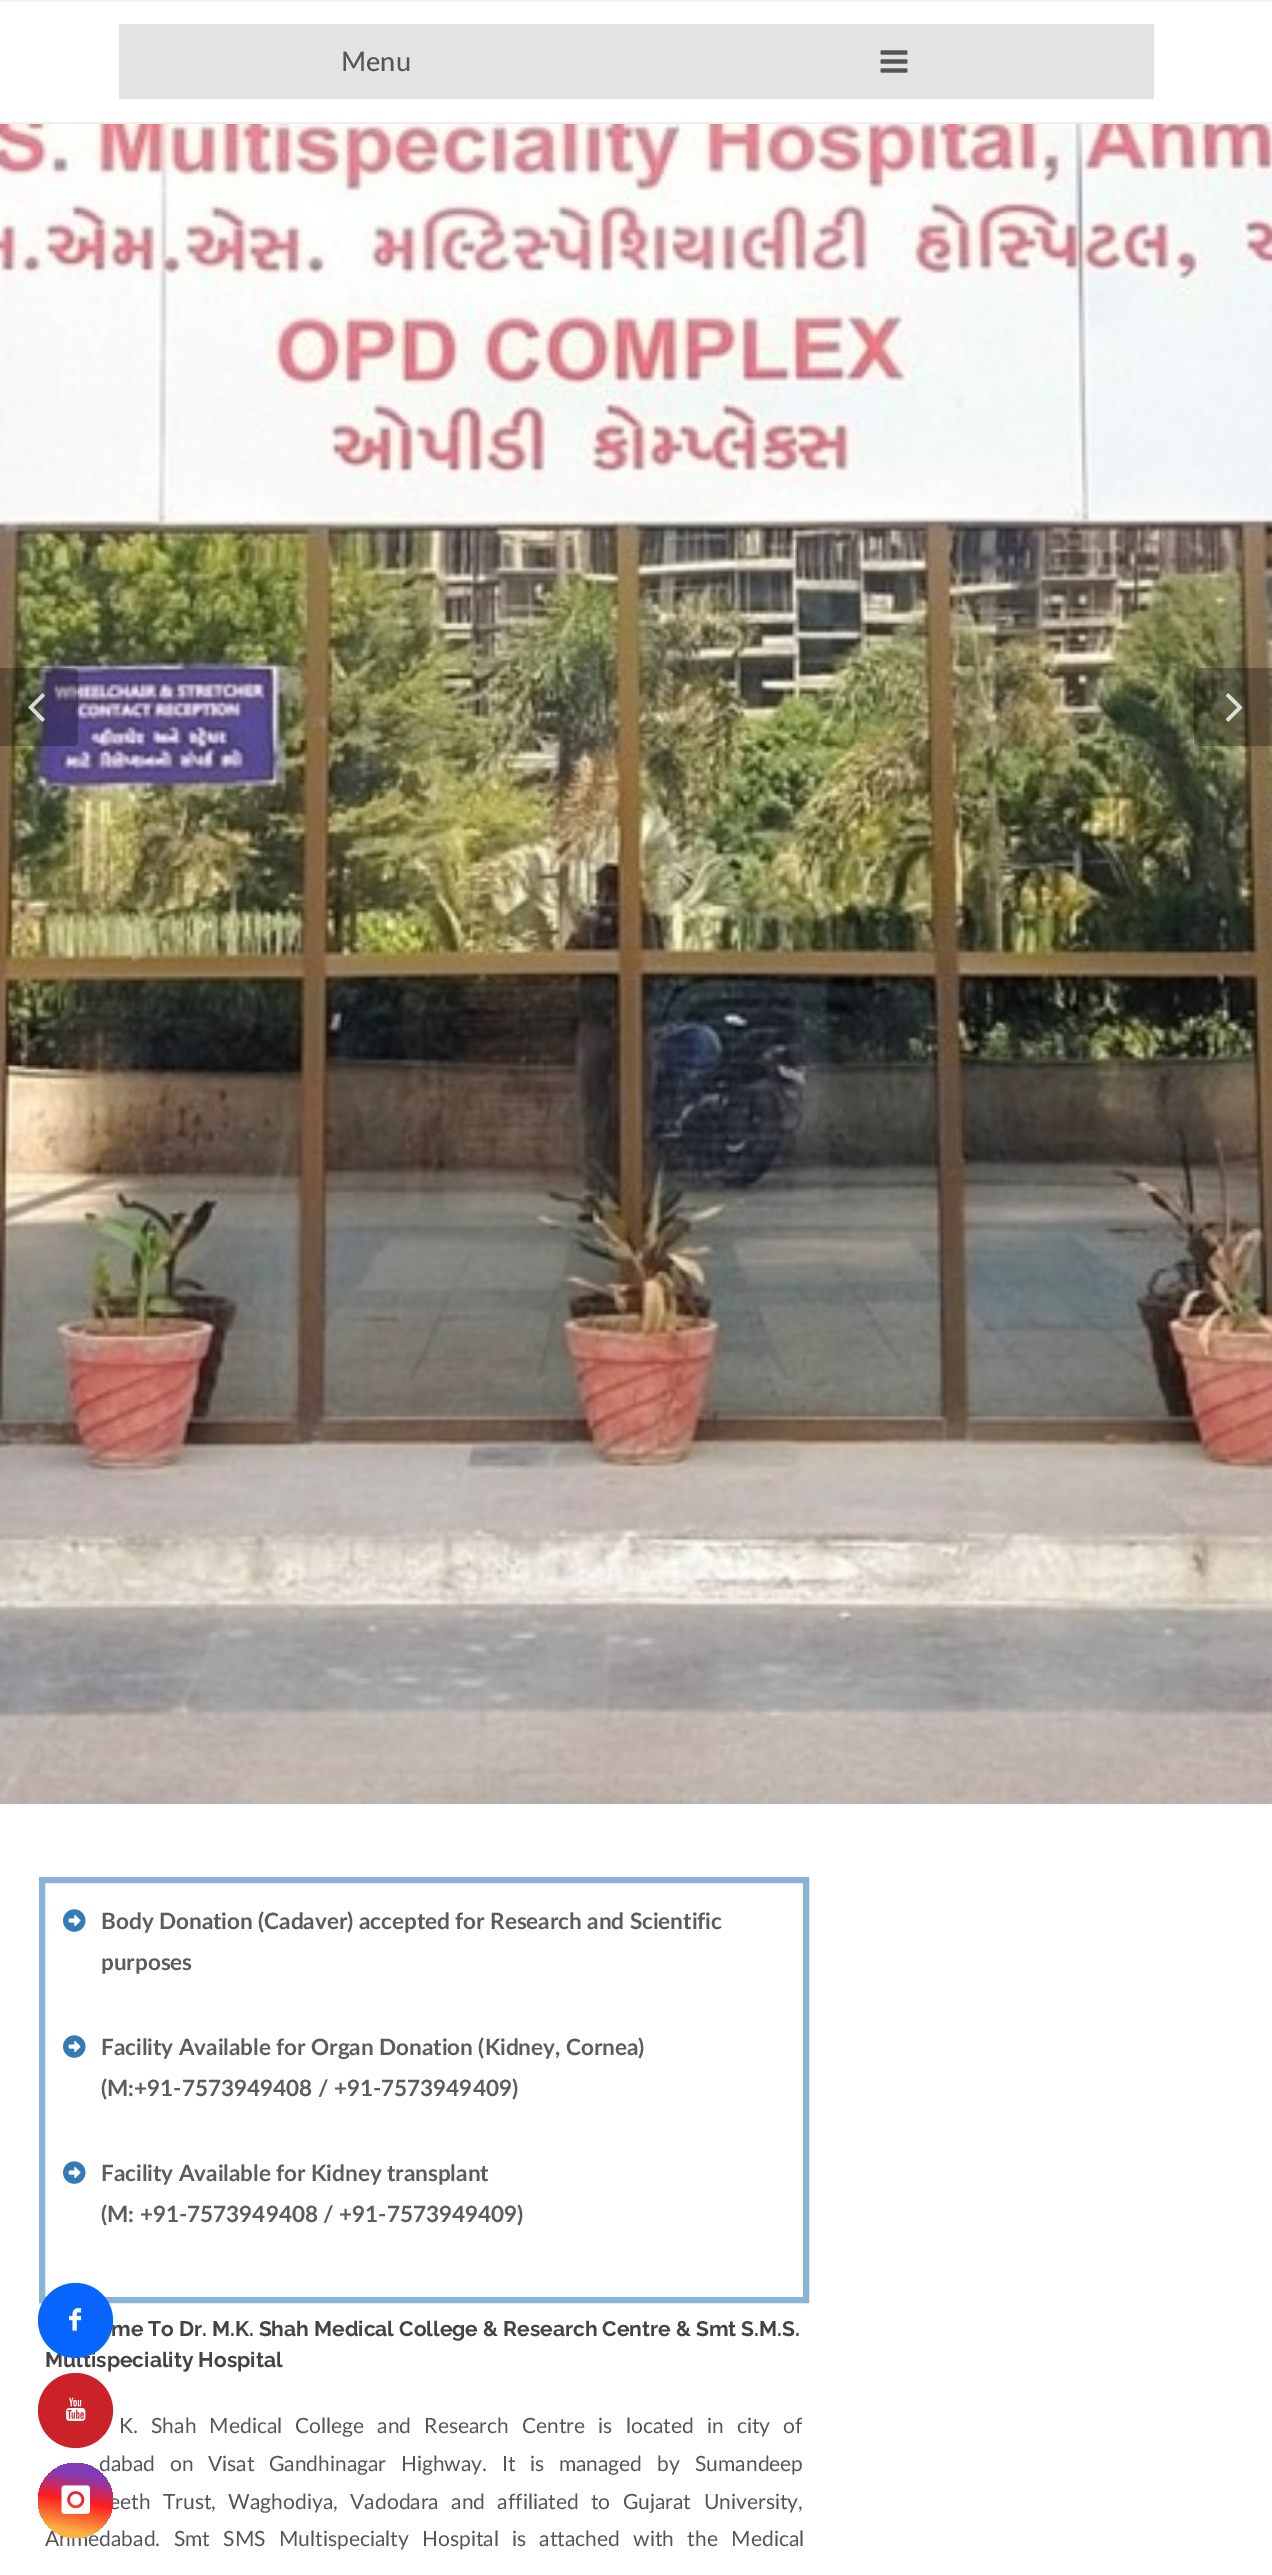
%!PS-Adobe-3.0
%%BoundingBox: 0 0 1272 2575
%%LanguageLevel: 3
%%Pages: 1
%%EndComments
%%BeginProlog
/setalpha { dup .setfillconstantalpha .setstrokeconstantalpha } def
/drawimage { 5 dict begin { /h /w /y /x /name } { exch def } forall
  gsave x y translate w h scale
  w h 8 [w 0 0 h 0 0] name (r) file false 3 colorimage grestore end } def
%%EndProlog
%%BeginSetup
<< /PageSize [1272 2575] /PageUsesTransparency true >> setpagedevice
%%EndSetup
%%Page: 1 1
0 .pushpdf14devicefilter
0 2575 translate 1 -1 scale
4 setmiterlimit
1 setgray
0 0 1272 2575 rectfill
0.933 setgray
0 122 1272 2 rectfill
0.961 setgray
0 0 1272 2 rectfill
0.89 setgray
119 24 1035 75 rectfill
(images/1.raw) 880 50 28 23 drawimage
(images/2.raw) 0 124 1272 1680 drawimage
0.3 setalpha
0 setgray
newpath 0 668 moveto 73 668 lineto 76 668 78 670 78 673 curveto 78 741 lineto 78 744 76 746 73 746 curveto 0 746 lineto closepath fill
1 setalpha
(images/3.raw) 28 693 17 29 drawimage
0.3 setalpha
newpath 1199 668 moveto 1272 668 lineto 1272 746 lineto 1199 746 lineto 1196 746 1194 744 1194 741 curveto 1194 673 lineto 1194 670 1196 668 1199 668 curveto closepath fill
1 setalpha
(images/4.raw) 1225 693 18 29 drawimage
0.537 0.698 0.835 setrgbcolor
6 setlinewidth
42 1880 764 420 rectstroke
(images/5.raw) 63 1909 23 23 drawimage
(images/5.raw) 63 2035 23 23 drawimage
(images/5.raw) 63 2161 23 23 drawimage
0.796 0.129 0.157 setrgbcolor
newpath 75.5 2410.5 37.5 0 360 arc closepath fill
(images/7.raw) 66 2397 20 24 drawimage
/Lato-Medium [27 0 0 -27 0 0] selectfont
0.333 setgray
341 71 moveto (Menu) show
/Lato-Bold [22.5 0 0 -22.5 0 0] selectfont
0.361 setgray
101 1929 moveto (Body Donation \(Cadaver\) accepted for Research and Scientific) show
101 1970 moveto (purposes) show
101 2055 moveto (Facility Available for Organ Donation \(Kidney, Cornea\)) show
101 2096 moveto (\(M:+91-7573949408 / +91-7573949409\)) show
101 2181 moveto (Facility Available for Kidney transplant) show
101 2222 moveto (\(M: +91-7573949408 / +91-7573949409\)) show
/Raleway-Bold [21 0 0 -21 0 0] selectfont
0.267 setgray
111 2336 moveto (me To Dr. M.K. Shah Medical College & Research Centre & Smt S.M.S.) show
45 2367 moveto (Multispeciality Hospital) show
/Lato-Regular [21 0 0 -21 0 0] selectfont
0.333 setgray
119 2433 moveto 7.75 0 32 (K. Shah Medical College and Research Centre is) widthshow
626 2433 moveto 7.75 0 32 (located in city of) widthshow
99 2471 moveto 9.25 0 32 (dabad on Visat Gandhinagar Highway. It is managed by) widthshow
695 2471 moveto (Sumandeep) show
109 2509 moveto 7 0 32 (eeth Trust, Waghodiya, Vadodara and affiliated to Gujarat) widthshow
704 2509 moveto (University,) show
45 2546 moveto 8 0 32 (Ahmedabad. Smt SMS Multispecialty Hospital is attached with the Medical) widthshow
0.031 0.4 1 setrgbcolor
newpath 75.5 2320.5 37.5 0 360 arc closepath fill
(images/6.raw) 69 2308 13 23 drawimage
gsave newpath 75.5 2500.5 37.5 0 360 arc closepath clip newpath
<< /ShadingType 2 /ColorSpace /DeviceRGB /Coords [83 2457 67 2544] /Extend [true true] /Function << /FunctionType 3 /Domain [0 1] /Functions [<< /FunctionType 2 /Domain [0 1] /C0 [0.514 0.227 0.706] /C1 [0.514 0.227 0.706] /N 1 >> << /FunctionType 2 /Domain [0 1] /C0 [0.514 0.227 0.706] /C1 [0.992 0.114 0.114] /N 1 >> << /FunctionType 2 /Domain [0 1] /C0 [0.992 0.114 0.114] /C1 [0.988 0.69 0.271] /N 1 >> << /FunctionType 2 /Domain [0 1] /C0 [0.988 0.69 0.271] /C1 [0.988 0.69 0.271] /N 1 >>] /Bounds [0.21 0.5 0.85] /Encode [0 1 0 1 0 1 0 1] >> >> shfill grestore
(images/8.raw) 61 2485 29 29 drawimage
.poppdf14devicefilter showpage
%%EOF
